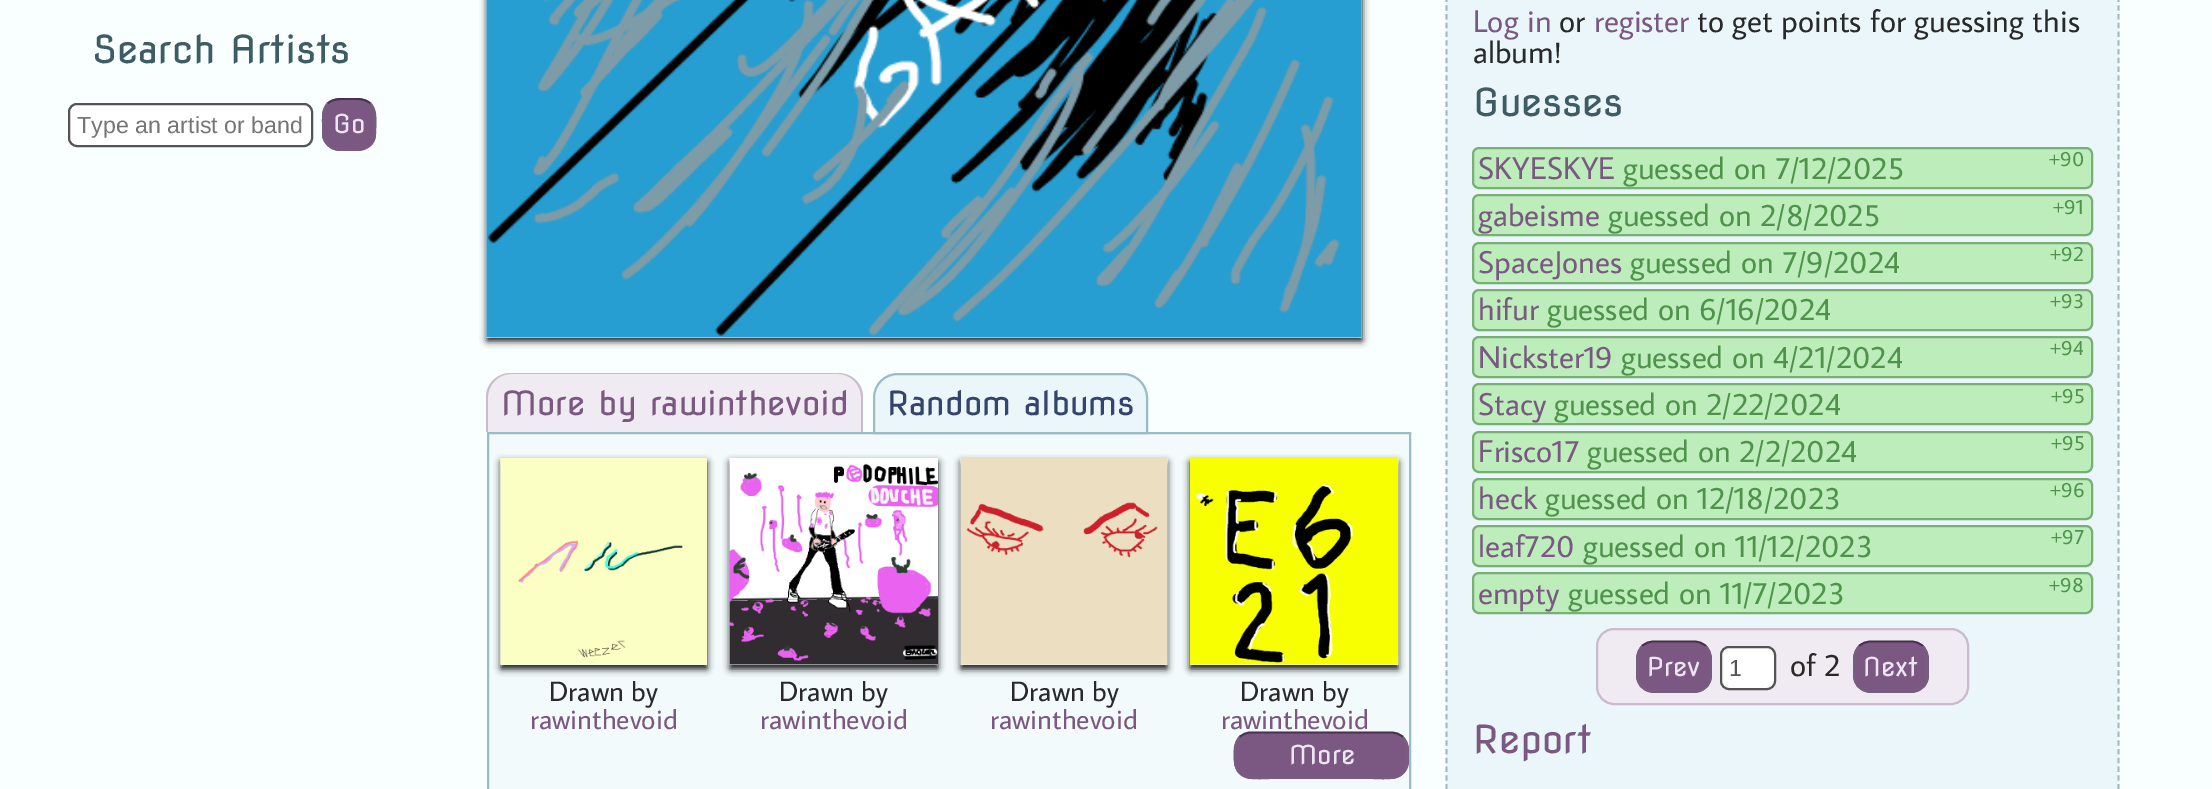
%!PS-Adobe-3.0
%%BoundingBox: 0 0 2212 789
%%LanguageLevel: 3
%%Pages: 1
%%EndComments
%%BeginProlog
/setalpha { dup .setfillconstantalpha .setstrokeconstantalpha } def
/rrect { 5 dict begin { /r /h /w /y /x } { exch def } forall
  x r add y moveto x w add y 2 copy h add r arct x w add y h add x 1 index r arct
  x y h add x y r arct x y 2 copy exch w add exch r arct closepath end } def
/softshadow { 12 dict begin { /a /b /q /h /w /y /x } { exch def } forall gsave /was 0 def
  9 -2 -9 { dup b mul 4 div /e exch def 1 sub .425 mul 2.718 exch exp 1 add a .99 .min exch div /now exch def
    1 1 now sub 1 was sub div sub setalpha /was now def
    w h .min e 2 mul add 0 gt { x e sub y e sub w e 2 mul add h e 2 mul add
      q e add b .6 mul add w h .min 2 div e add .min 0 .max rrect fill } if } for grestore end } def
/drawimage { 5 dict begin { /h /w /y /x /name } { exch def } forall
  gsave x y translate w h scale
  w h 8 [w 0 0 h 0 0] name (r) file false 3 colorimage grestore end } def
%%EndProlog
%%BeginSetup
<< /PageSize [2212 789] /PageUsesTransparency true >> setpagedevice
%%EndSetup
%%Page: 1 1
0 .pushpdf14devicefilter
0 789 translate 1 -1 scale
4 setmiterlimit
0.976 0.996 1 setrgbcolor
0 0 2212 789 rectfill
1 setgray
69 104 243 42 8 rrect gsave fill grestore
0.329 setgray
2 setlinewidth
stroke
0.478 0.345 0.51 setrgbcolor
322 98 54 53 18 rrect fill
0.286 0.192 0.31 setrgbcolor
1.8 setlinewidth
newpath 327.5 103.5 moveto 333.5 98 341.5 99 349 99 curveto 357 99 364.5 98 370.5 103.5 curveto stroke
0.467 0.369 0.498 setrgbcolor
newpath 370.5 103.5 moveto 376 109.5 375.5 117 375.5 124 curveto 375 136.5 lineto 372.5 150 360.5 149.5 349 149.5 curveto 338 149.5 lineto 330.5 149 324.5 143.5 323 136.5 curveto 323 127 lineto 323 119 321.5 110 327.5 103.5 curveto stroke
0.078 setgray
487 -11 875 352 0 3.5 1 softshadow
(images/1.raw) 486 0 876 338 drawimage
0.941 0.918 0.949 setrgbcolor
newpath 512 373 moveto 838 373 lineto 852 373 863 384 863 398 curveto 863 432 lineto 487 432 lineto 487 398 lineto 487 384 498 373 512 373 curveto closepath fill
0.788 0.733 0.808 setrgbcolor
newpath 511 373 moveto 838 373 lineto 852 373 863 384 863 397 curveto 863 432 lineto 486 432 lineto 486 397 lineto 486 384 497 373 511 373 curveto closepath 511 374 moveto 838 374 lineto 851 374 861 385 861 397 curveto 861 432 lineto 488 432 lineto 488 397 lineto 488 385 498 374 511 374 curveto closepath eofill
0.949 0.98 0.988 setrgbcolor
newpath 488 433 moveto 1410 433 lineto 1410 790 lineto 488 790 lineto closepath gsave fill grestore
0.608 0.737 0.769 setrgbcolor
2 setlinewidth
stroke
0.918 0.965 0.976 setrgbcolor
newpath 898 374 moveto 1123 374 lineto 1136.5 374 1147 384.5 1147 398 curveto 1147 433 lineto 874 433 lineto 874 398 lineto 874 384.5 884.5 374 898 374 curveto closepath gsave fill grestore
0.608 0.737 0.769 setrgbcolor
stroke
0.078 setgray
501 462 206 207 0 3.5 1 softshadow
(images/2.raw) 500 458 207 207 drawimage
730 462 208 207 0 3.5 1 softshadow
(images/3.raw) 729 458 209 207 drawimage
961 462 206 207 0 3.5 1 softshadow
(images/4.raw) 960 458 208 207 drawimage
1190 462 208 207 0 3.5 1 softshadow
(images/5.raw) 1190 458 209 207 drawimage
0.478 0.345 0.51 setrgbcolor
1234 732 175 47 18 rrect fill
0.286 0.192 0.31 setrgbcolor
1.8 setlinewidth
newpath 1239.5 737 moveto 1242.5 734 1247 732.5 1251 732.5 curveto 1391 732.5 lineto 1395.5 732.5 1400 734 1403 737 curveto stroke
0.467 0.369 0.498 setrgbcolor
newpath 1403 737 moveto 1408.5 743 1408 750 1408 757 curveto 1408 783 1388.5 778 1368 778 curveto 1274.5 778 lineto 1254 778 1234.5 783 1234.5 757 curveto 1234.5 750 1234 743 1239.5 737 curveto stroke
0.918 0.965 0.976 setrgbcolor
1446 0 673 789 rectfill
0.635 0.718 0.737 setrgbcolor
[5.25 3.5] 0 setdash
newpath 2118.5 -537 moveto 2118.5 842 lineto stroke
newpath 1446.5 -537 moveto 1446.5 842 lineto stroke
0.741 0.929 0.733 setrgbcolor
1473 148 619 40 6 rrect gsave fill grestore
0.467 0.686 0.459 setrgbcolor
2 setlinewidth
[] 0 setdash
stroke
0.741 0.929 0.733 setrgbcolor
1473 195 619 40 6 rrect gsave fill grestore
0.467 0.686 0.459 setrgbcolor
stroke
0.741 0.929 0.733 setrgbcolor
1473 243 619 40 6 rrect gsave fill grestore
0.467 0.686 0.459 setrgbcolor
stroke
0.741 0.929 0.733 setrgbcolor
1473 290 619 40 6 rrect gsave fill grestore
0.467 0.686 0.459 setrgbcolor
stroke
0.741 0.929 0.733 setrgbcolor
1473 337 619 40 6 rrect gsave fill grestore
0.467 0.686 0.459 setrgbcolor
stroke
0.741 0.929 0.733 setrgbcolor
1473 384 619 40 6 rrect gsave fill grestore
0.467 0.686 0.459 setrgbcolor
stroke
0.741 0.929 0.733 setrgbcolor
1473 432 619 40 6 rrect gsave fill grestore
0.467 0.686 0.459 setrgbcolor
stroke
0.741 0.929 0.733 setrgbcolor
1473 479 619 40 6 rrect gsave fill grestore
0.467 0.686 0.459 setrgbcolor
stroke
0.741 0.929 0.733 setrgbcolor
1473 526 619 40 6 rrect gsave fill grestore
0.467 0.686 0.459 setrgbcolor
stroke
0.741 0.929 0.733 setrgbcolor
1473 573 619 40 6 rrect gsave fill grestore
0.467 0.686 0.459 setrgbcolor
stroke
0.941 0.918 0.949 setrgbcolor
1597 629 371 75 17 rrect gsave fill grestore
0.788 0.733 0.808 setrgbcolor
stroke
0.478 0.345 0.51 setrgbcolor
1636 641 76 52 18 rrect fill
0.286 0.192 0.31 setrgbcolor
1.8 setlinewidth
newpath 1642 646 moveto 1645 643 1649.5 641.5 1654 641.5 curveto 1694 641.5 lineto 1698.5 641.5 1702.5 643 1706 646 curveto stroke
0.467 0.369 0.498 setrgbcolor
newpath 1706 646 moveto 1712 652.5 1710.5 661.5 1710.5 669.5 curveto 1710.5 679 lineto 1708 691 1698 692 1687.5 692 curveto 1660.5 692 lineto 1650 692 1640 691 1637.5 679 curveto 1637 667 lineto 1637 659.5 1636.5 652 1642 646 curveto stroke
1 setgray
1721 647 54 42 8 rrect gsave fill grestore
0.329 setgray
2 setlinewidth
stroke
0.478 0.345 0.51 setrgbcolor
1853 641 76 52 18 rrect fill
0.286 0.192 0.31 setrgbcolor
1.8 setlinewidth
newpath 1859 646 moveto 1862 643 1866.5 641.5 1871 641.5 curveto 1911 641.5 lineto 1915.5 641.5 1919.5 643 1923 646 curveto stroke
0.467 0.369 0.498 setrgbcolor
newpath 1923 646 moveto 1929 652.5 1927.5 661.5 1927.5 669.5 curveto 1927.5 679 lineto 1925 691 1915 692 1904.5 692 curveto 1877.5 692 lineto 1867 692 1857 691 1854.5 679 curveto 1854 667 lineto 1854 659.5 1853.5 652 1859 646 curveto stroke
/NovaFlat-Regular [38.5 0 0 -38.5 0 0] selectfont
0.243 0.361 0.388 setrgbcolor
92 63 moveto (Search Artists) show
/LiberationSans-Regular [23.25 0 0 -23.25 0 0] selectfont
0.459 setgray
77 133 moveto (Type an artist or band) show
/NovaFlat-Regular [26 0 0 -26 0 0] selectfont
0.929 0.902 0.949 setrgbcolor
333 133 moveto (Go) show
/NovaFlat-Regular [33.25 0 0 -33.25 0 0] selectfont
0.478 0.345 0.51 setrgbcolor
501 415 moveto (More by rawinthevoid) show
0.208 0.267 0.427 setrgbcolor
887 415 moveto (Random albums) show
/AverageSans-Regular [28 0 0 -28 0 0] selectfont
0.161 setgray
549 701 moveto (Drawn by) show
0.478 0.345 0.51 setrgbcolor
530 729 moveto (rawinthevoid) show
0.161 setgray
779 701 moveto (Drawn by) show
0.478 0.345 0.51 setrgbcolor
760 729 moveto (rawinthevoid) show
0.161 setgray
1010 701 moveto (Drawn by) show
0.478 0.345 0.51 setrgbcolor
990 729 moveto (rawinthevoid) show
0.161 setgray
1240 701 moveto (Drawn by) show
0.478 0.345 0.51 setrgbcolor
1221 729 moveto (rawinthevoid) show
/NovaFlat-Regular [26 0 0 -26 0 0] selectfont
0.929 0.902 0.949 setrgbcolor
1289 764 moveto (More) show
/AverageSans-Regular [31.5 0 0 -31.5 0 0] selectfont
0.478 0.345 0.51 setrgbcolor
1473 32 moveto (Log in) show
0.161 setgray
1559 32 moveto (or) show
0.478 0.345 0.51 setrgbcolor
1594 32 moveto (register) show
0.161 setgray
1697 32 moveto (to get points for guessing this) show
1473 63 moveto (album!) show
/NovaFlat-Regular [38.5 0 0 -38.5 0 0] selectfont
0.243 0.361 0.388 setrgbcolor
1473 116 moveto (Guesses) show
/AverageSans-Regular [31.5 0 0 -31.5 0 0] selectfont
0.478 0.345 0.51 setrgbcolor
1478 179 moveto (SKYESKYE) show
0.31 0.576 0.294 setrgbcolor
1623 179 moveto (guessed on 7/12/2025) show
/AverageSans-Regular [21 0 0 -21 0 0] selectfont
2049 166 moveto (+90) show
/AverageSans-Regular [31.5 0 0 -31.5 0 0] selectfont
0.478 0.345 0.51 setrgbcolor
1478 226 moveto (gabeisme) show
0.31 0.576 0.294 setrgbcolor
1608 226 moveto (guessed on 2/8/2025) show
/AverageSans-Regular [21 0 0 -21 0 0] selectfont
2053 214 moveto (+91) show
/AverageSans-Regular [31.5 0 0 -31.5 0 0] selectfont
0.478 0.345 0.51 setrgbcolor
1478 273 moveto (SpaceJones) show
0.31 0.576 0.294 setrgbcolor
1630 273 moveto (guessed on 7/9/2024) show
/AverageSans-Regular [21 0 0 -21 0 0] selectfont
2050 261 moveto (+92) show
/AverageSans-Regular [31.5 0 0 -31.5 0 0] selectfont
0.478 0.345 0.51 setrgbcolor
1478 320 moveto (hifur) show
0.31 0.576 0.294 setrgbcolor
1547 320 moveto (guessed on 6/16/2024) show
/AverageSans-Regular [21 0 0 -21 0 0] selectfont
2050 308 moveto (+93) show
/AverageSans-Regular [31.5 0 0 -31.5 0 0] selectfont
0.478 0.345 0.51 setrgbcolor
1478 368 moveto (Nickster19) show
0.31 0.576 0.294 setrgbcolor
1621 368 moveto (guessed on 4/21/2024) show
/AverageSans-Regular [21 0 0 -21 0 0] selectfont
2050 355 moveto (+94) show
/AverageSans-Regular [31.5 0 0 -31.5 0 0] selectfont
0.478 0.345 0.51 setrgbcolor
1478 415 moveto (Stacy) show
0.31 0.576 0.294 setrgbcolor
1554 415 moveto (guessed on 2/22/2024) show
/AverageSans-Regular [21 0 0 -21 0 0] selectfont
2051 403 moveto (+95) show
/AverageSans-Regular [31.5 0 0 -31.5 0 0] selectfont
0.478 0.345 0.51 setrgbcolor
1478 462 moveto (Frisco17) show
0.31 0.576 0.294 setrgbcolor
1587 462 moveto (guessed on 2/2/2024) show
/AverageSans-Regular [21 0 0 -21 0 0] selectfont
2051 450 moveto (+95) show
/AverageSans-Regular [31.5 0 0 -31.5 0 0] selectfont
0.478 0.345 0.51 setrgbcolor
1478 509 moveto (heck) show
0.31 0.576 0.294 setrgbcolor
1545 509 moveto (guessed on 12/18/2023) show
/AverageSans-Regular [21 0 0 -21 0 0] selectfont
2050 497 moveto (+96) show
/AverageSans-Regular [31.5 0 0 -31.5 0 0] selectfont
0.478 0.345 0.51 setrgbcolor
1478 557 moveto (leaf720) show
0.31 0.576 0.294 setrgbcolor
1583 557 moveto (guessed on 11/12/2023) show
/AverageSans-Regular [21 0 0 -21 0 0] selectfont
2051 544 moveto (+97) show
/AverageSans-Regular [31.5 0 0 -31.5 0 0] selectfont
0.478 0.345 0.51 setrgbcolor
1478 604 moveto (empty) show
0.31 0.576 0.294 setrgbcolor
1568 604 moveto (guessed on 11/7/2023) show
/AverageSans-Regular [21 0 0 -21 0 0] selectfont
2049 592 moveto (+98) show
/NovaFlat-Regular [26 0 0 -26 0 0] selectfont
0.929 0.902 0.949 setrgbcolor
1647 676 moveto (Prev) show
/LiberationSans-Regular [23.25 0 0 -23.25 0 0] selectfont
0.329 setgray
1729 676 moveto (1) show
/AverageSans-Regular [31.5 0 0 -31.5 0 0] selectfont
0.161 setgray
1790 676 moveto (of 2) show
/NovaFlat-Regular [26 0 0 -26 0 0] selectfont
0.929 0.902 0.949 setrgbcolor
1863 676 moveto (Next) show
/NovaFlat-Regular [38.5 0 0 -38.5 0 0] selectfont
0.478 0.345 0.51 setrgbcolor
1473 753 moveto (Report) show
.poppdf14devicefilter showpage
%%EOF
